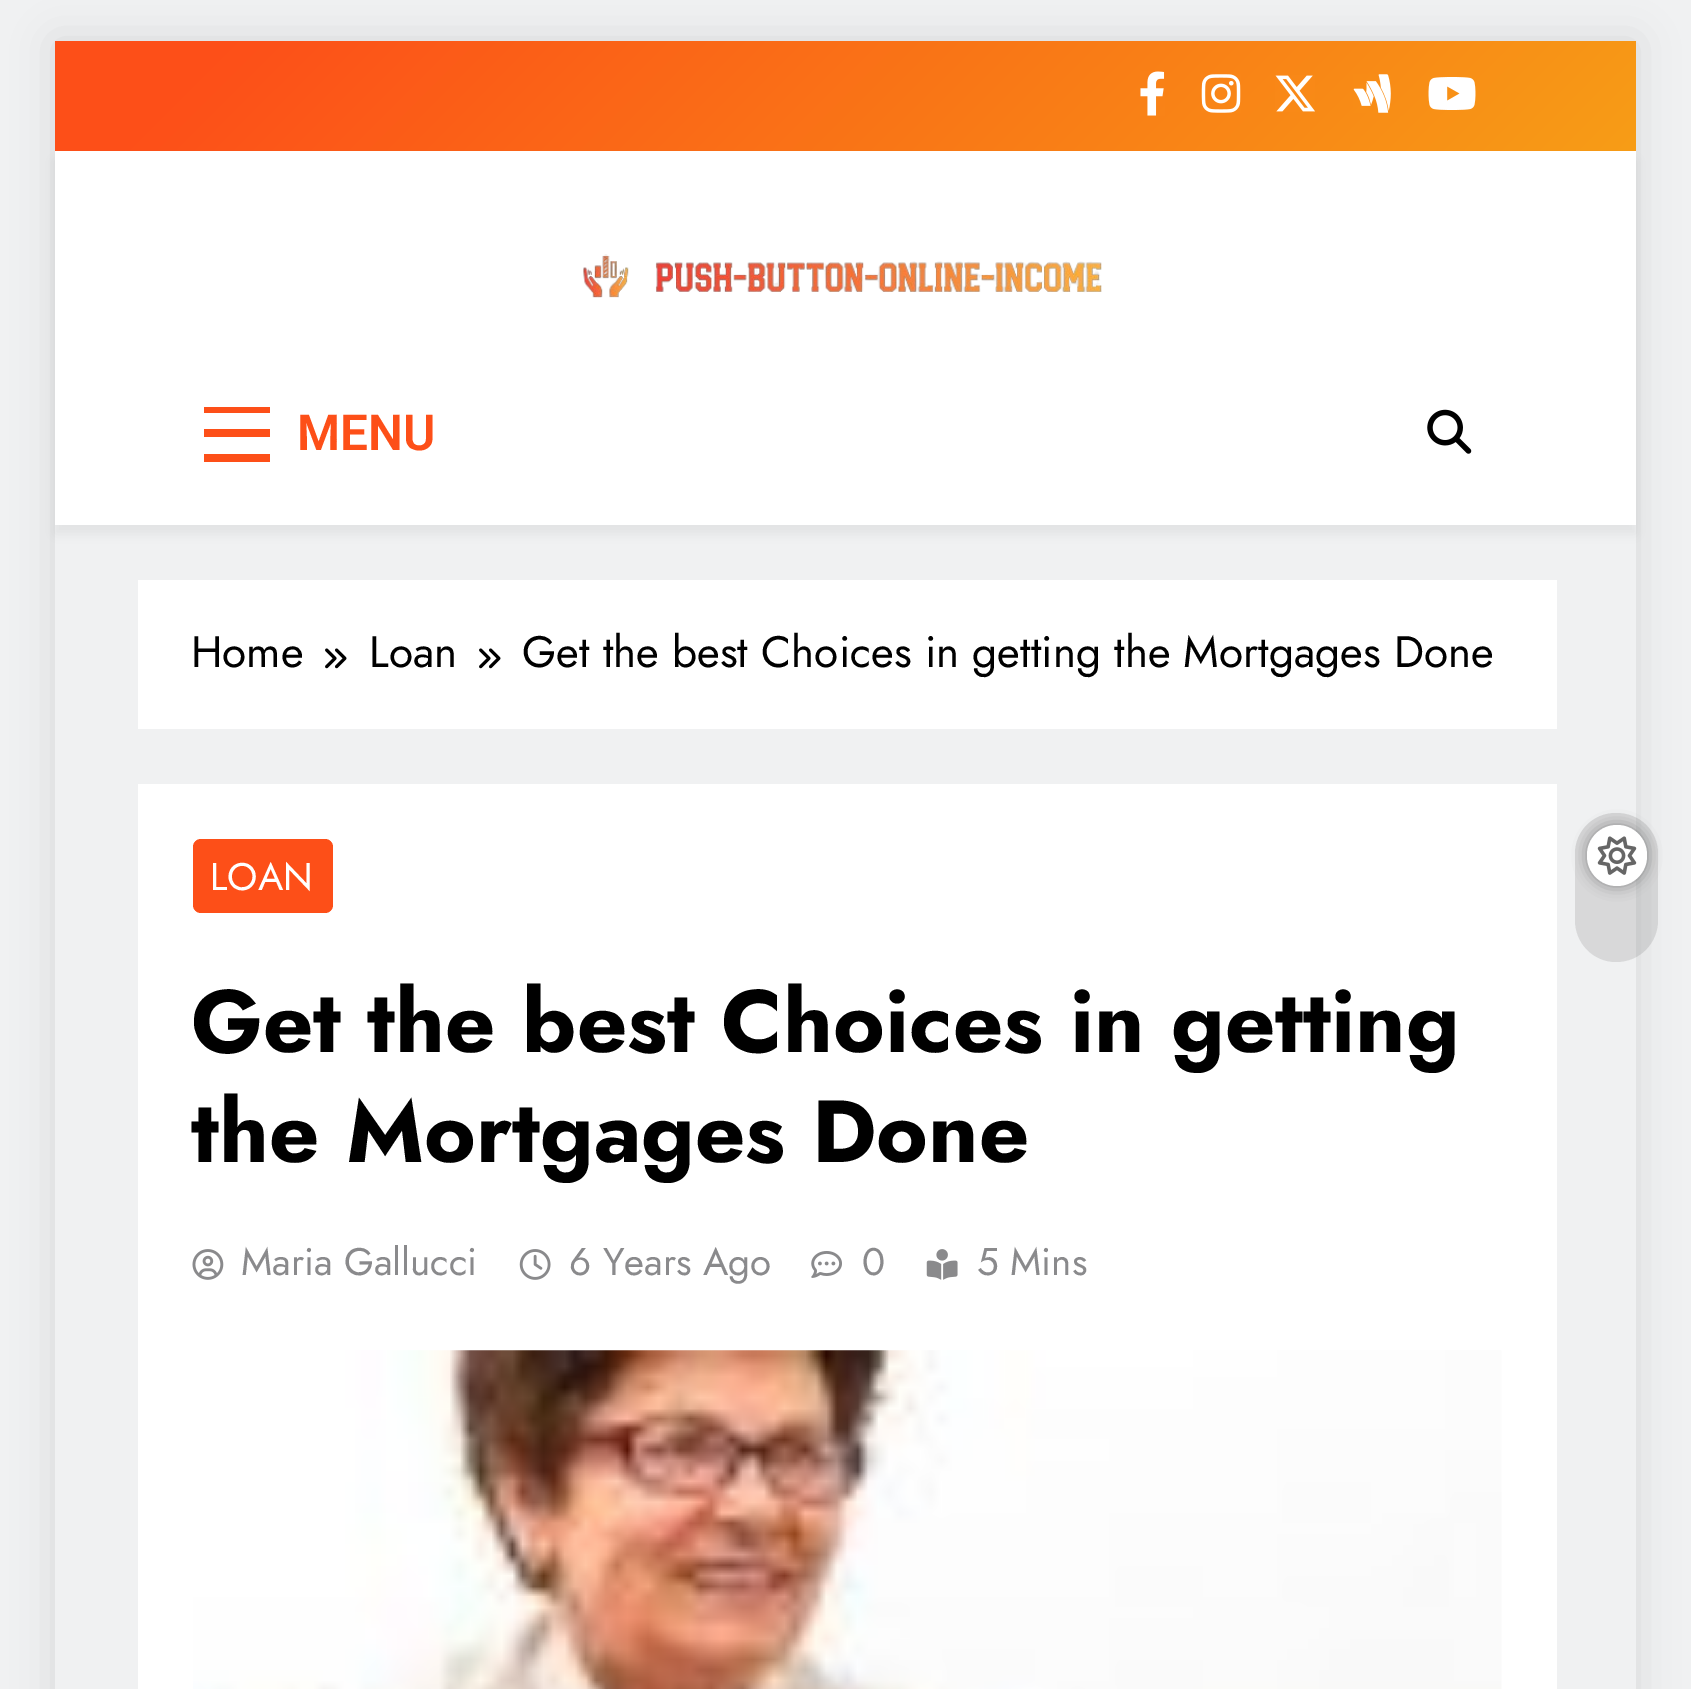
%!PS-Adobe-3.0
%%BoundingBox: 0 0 1691 1689
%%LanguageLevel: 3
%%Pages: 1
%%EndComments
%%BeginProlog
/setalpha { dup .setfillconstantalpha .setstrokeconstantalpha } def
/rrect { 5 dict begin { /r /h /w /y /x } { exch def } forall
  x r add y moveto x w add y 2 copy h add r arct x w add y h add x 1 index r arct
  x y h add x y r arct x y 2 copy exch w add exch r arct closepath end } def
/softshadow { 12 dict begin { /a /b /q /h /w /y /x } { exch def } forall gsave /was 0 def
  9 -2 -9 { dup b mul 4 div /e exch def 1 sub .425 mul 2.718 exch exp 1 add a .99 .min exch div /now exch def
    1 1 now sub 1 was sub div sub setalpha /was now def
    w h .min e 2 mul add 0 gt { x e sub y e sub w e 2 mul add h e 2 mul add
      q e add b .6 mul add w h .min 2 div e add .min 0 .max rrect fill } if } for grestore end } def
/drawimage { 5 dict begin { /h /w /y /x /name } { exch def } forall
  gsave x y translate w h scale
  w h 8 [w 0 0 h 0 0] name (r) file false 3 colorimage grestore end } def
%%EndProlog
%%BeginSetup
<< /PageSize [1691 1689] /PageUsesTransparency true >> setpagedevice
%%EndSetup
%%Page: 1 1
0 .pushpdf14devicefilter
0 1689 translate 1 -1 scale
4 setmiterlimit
0.941 0.945 0.949 setrgbcolor
0 0 1691 1689 rectfill
gsave
newpath 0 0 moveto 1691 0 lineto 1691 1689 lineto 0 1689 lineto closepath 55 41 moveto 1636 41 lineto 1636 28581 lineto 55 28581 lineto closepath eoclip newpath
0 setgray
55 41 1581 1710 0 20.5 0.1 softshadow
grestore
gsave newpath 55 41 moveto 1636 41 lineto 1636 151 lineto 55 151 lineto closepath clip newpath
<< /ShadingType 2 /ColorSpace /DeviceRGB /Coords [423 -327 1268 519] /Extend [true true] /Function << /FunctionType 3 /Domain [0 1] /Functions [<< /FunctionType 2 /Domain [0 1] /C0 [0.992 0.31 0.094] /C1 [0.992 0.31 0.094] /N 1 >> << /FunctionType 2 /Domain [0 1] /C0 [0.992 0.31 0.094] /C1 [0.969 0.616 0.086] /N 1 >>] /Bounds [0.1] /Encode [0 1 0 1] >> >> shfill grestore
(images/1.raw) 1140 71 25 45 drawimage
(images/2.raw) 1201 74 40 39 drawimage
(images/3.raw) 1275 75 40 37 drawimage
(images/4.raw) 1353 74 38 39 drawimage
(images/5.raw) 1428 77 48 33 drawimage
0 setgray
55 160 1581 374 0 5.5 0.05 softshadow
1 setgray
55 151 1581 374 rectfill
(images/6.raw) 583 254 519 44 drawimage
0.992 0.31 0.094 setrgbcolor
204 407 66 6 rectfill
204 429 66 8 rectfill
204 454 66 8 rectfill
(images/7.raw) 1427 409 45 45 drawimage
0.1 setalpha
0 setgray
newpath 1658 854 moveto 1658 920 lineto 1658 943 1640 962 1616 962 curveto 1593 962 1575 943 1575 920 curveto 1575 854 lineto 1575 831 1593 813 1616 813 curveto 1640 813 1658 831 1658 854 curveto closepath fill
1 setalpha
1587 825 60 61 30 7 0.35 softshadow
1 setgray
1587 825 60 61 30 rrect fill
(images/8.raw) 1597 836 40 39 drawimage
138 580 1419 149 rectfill
(images/9.raw) 325 648 22 21 drawimage
(images/9.raw) 479 648 22 21 drawimage
138 784 1419 905 rectfill
0.992 0.31 0.094 setrgbcolor
193 839 140 74 8 rrect fill
(images/10.raw) 192 1249 32 31 drawimage
(images/11.raw) 519 1249 32 31 drawimage
(images/12.raw) 811 1251 31 27 drawimage
(images/13.raw) 926 1249 32 31 drawimage
(images/14.raw) 193 1350 1309 339 drawimage
/Roboto-SemiBold [49.5 0 0 -49.5 0 0] selectfont
297 450 moveto (MENU) show
/Jost-Regular [44 0 0 -44 0 0] selectfont
0 setgray
191 667 moveto (Home) show
369 667 moveto (Loan) show
522 667 moveto (Get the best Choices in getting the Mortgages Done) show
/Jost-Regular [38.5 0 0 -38.5 0 0] selectfont
1 setgray
210 890 moveto (LOAN) show
/Jost-Bold [88 0 0 -88 0 0] selectfont
0 setgray
191 1052 moveto (Get the best Choices in getting) show
191 1162 moveto (the Mortgages Done) show
/Jost-Regular [38.5 0 0 -38.5 0 0] selectfont
0.541 0.541 0.549 setrgbcolor
241 1275 moveto (Maria Gallucci) show
569 1275 moveto (6 Years Ago) show
862 1275 moveto (0) show
977 1275 moveto (5 Mins) show
.poppdf14devicefilter showpage
%%EOF
